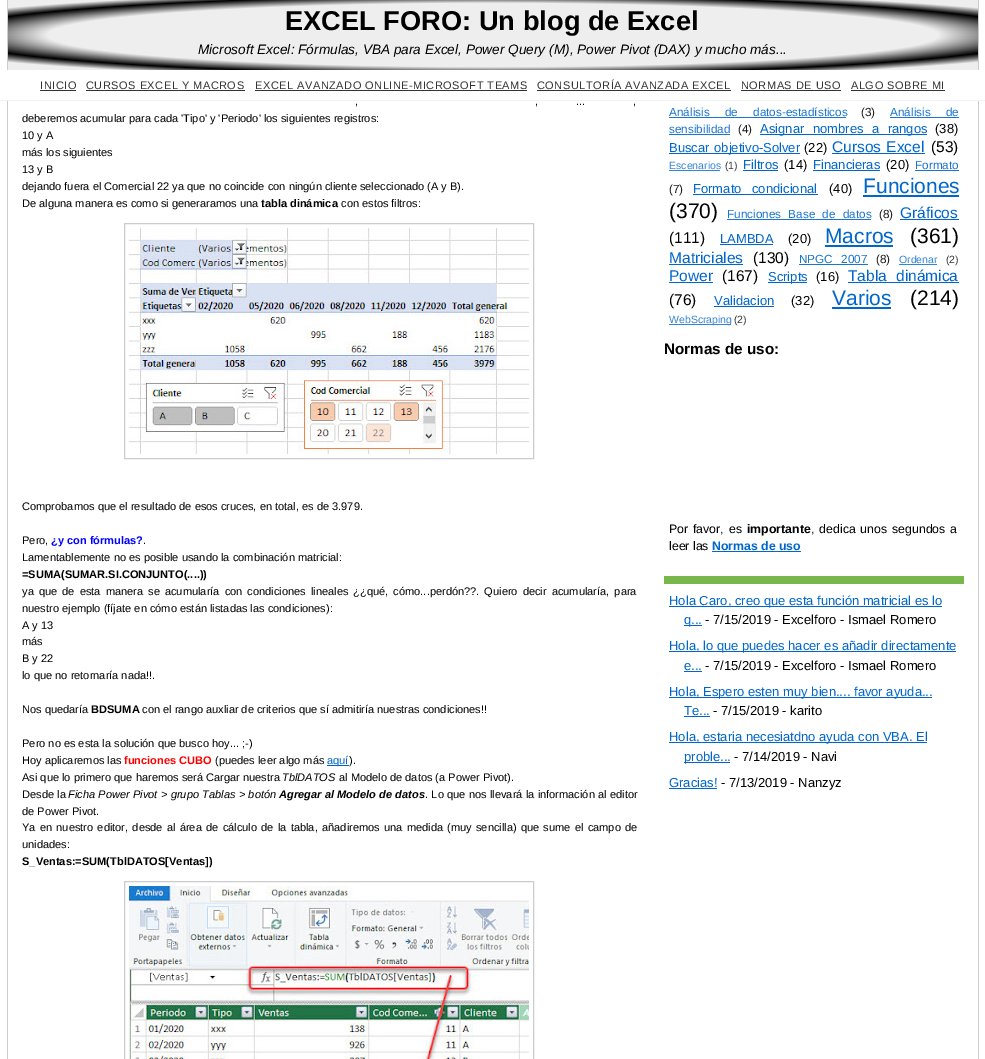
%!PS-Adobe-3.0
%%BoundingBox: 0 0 985 1059
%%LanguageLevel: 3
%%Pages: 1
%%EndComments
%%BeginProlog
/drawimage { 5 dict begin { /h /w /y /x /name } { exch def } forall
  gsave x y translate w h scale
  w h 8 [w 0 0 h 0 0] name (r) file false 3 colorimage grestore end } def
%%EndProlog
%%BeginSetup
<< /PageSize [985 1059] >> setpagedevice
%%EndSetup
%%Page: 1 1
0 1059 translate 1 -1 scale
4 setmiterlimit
1 setgray
0 0 985 1059 rectfill
gsave newpath 8 0 moveto 978 0 lineto 978 70 lineto 8 70 lineto closepath clip newpath 493 35 translate 686 49 scale
<< /ShadingType 3 /ColorSpace /DeviceRGB /Coords [0 0 0 0 0 1] /Extend [true true] /Function << /FunctionType 3 /Domain [0 1] /Functions [<< /FunctionType 2 /Domain [0 1] /C0 [0.933 0.933 0.933] /C1 [0.933 0.933 0.933] /N 1 >> << /FunctionType 2 /Domain [0 1] /C0 [0.933 0.933 0.933] /C1 [0 0 0] /N 1 >> << /FunctionType 2 /Domain [0 1] /C0 [0 0 0] /C1 [0.933 0.933 0.933] /N 1 >> << /FunctionType 2 /Domain [0 1] /C0 [0.933 0.933 0.933] /C1 [0.933 0.933 0.933] /N 1 >>] /Bounds [0.65 0.8 0.9] /Encode [0 1 0 1 0 1 0 1] >> >> shfill grestore
0.8 setgray
978 0 1 70 rectfill
7 0 1 70 rectfill
978 101 1 958 rectfill
7 101 1 958 rectfill
0.949 setgray
0 100 985 1 rectfill
0.2 setgray
40 90 36 1 rectfill
86 90 159 1 rectfill
255 90 272 1 rectfill
537 90 194 1 rectfill
741 90 100 1 rectfill
851 90 94 1 rectfill
0.8 setgray
124.5 223.5 409 235 rectstroke
(images/1.raw) 129 228 400 226 drawimage
0 0.4 0.8 setrgbcolor
327 765 22 1 rectfill
0.8 setgray
124.5 881.5 409 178 rectstroke
(images/2.raw) 129 886 400 173 drawimage
0.102 0.459 0.82 setrgbcolor
669 117 177 1 rectfill
890 117 69 1 rectfill
669 134 61 1 rectfill
0 0.4 0.8 setrgbcolor
760 134 167 1 rectfill
669 153 131 1 rectfill
832 153 93 1 rectfill
0.2 0.522 0.839 setrgbcolor
669 170 51 1 rectfill
0 0.4 0.8 setrgbcolor
743 170 35 1 rectfill
813 170 67 1 rectfill
0.102 0.459 0.82 setrgbcolor
915 170 44 1 rectfill
0 0.4 0.8 setrgbcolor
693 194 125 1 rectfill
863 195 96 2 rectfill
0.102 0.459 0.82 setrgbcolor
727 219 144 1 rectfill
0 0.4 0.8 setrgbcolor
900 219 59 1 rectfill
720 244 53 1 rectfill
825 245 68 2 rectfill
669 264 74 1 rectfill
0.102 0.459 0.82 setrgbcolor
799 264 69 1 rectfill
0.2 0.522 0.839 setrgbcolor
899 264 38 1 rectfill
0 0.4 0.8 setrgbcolor
669 282 44 1 rectfill
768 282 39 1 rectfill
848 282 111 1 rectfill
714 306 60 1 rectfill
832 307 59 2 rectfill
0.2 0.522 0.839 setrgbcolor
669 324 62 1 rectfill
0 0.4 0.8 setrgbcolor
712 551 89 1 rectfill
0.471 0.718 0.286 setrgbcolor
664 576 300 8 rectfill
0 0.4 0.8 setrgbcolor
669 606 273 1 rectfill
684 625 18 1 rectfill
669 651 287 1 rectfill
684 671 18 1 rectfill
669 697 263 1 rectfill
684 716 26 1 rectfill
669 742 258 1 rectfill
684 762 46 1 rectfill
669 788 48 1 rectfill
/LiberationSans-Bold [27.25 0 0 -27.25 0 0] selectfont
0 setgray
285 30 moveto (EXCEL FORO: Un blog de Excel) show
/LiberationSans-Italic [13.65 0 0 -13.65 0 0] selectfont
198 54 moveto (Microsoft Excel: Fórmulas, VBA para Excel, Power Query \(M\), Power Pivot \(DAX\) y mucho más...) show
/LiberationSans-Regular [11 0 0 -11 0 0] selectfont
0.2 setgray
40 89 moveto 0.5 0 (INICIO) ashow
86 89 moveto 0.5 0 (CURSOS EXCEL Y MACROS) ashow
255 89 moveto 0.5 0 (EXCEL AVANZADO ONLINE-MICROSOFT TEAMS) ashow
537 89 moveto 0.5 0 (CONSULTORÍA AVANZADA EXCEL) ashow
741 89 moveto 0.5 0 (NORMAS DE USO) ashow
851 89 moveto 0.5 0 (ALGO SOBRE MI) ashow
/LiberationSans-Regular [11.05 0 0 -11.05 0 0] selectfont
0 setgray
355 105 moveto 1 0 32 (,) widthshow
535 105 moveto 1 0 32 (,) widthshow
576 105 moveto 1 0 32 (...) widthshow
633 105 moveto 1 0 32 (,) widthshow
22 122 moveto (deberemos acumular para cada 'Tipo' y 'Periodo' los siguientes registros:) show
22 139 moveto (10 y A) show
22 156 moveto (más los siguientes) show
22 173 moveto (13 y B) show
22 190 moveto (dejando fuera el Comercial 22 ya que no coincide con ningún cliente seleccionado \(A y B\).) show
22 207 moveto (De alguna manera es como si generaramos una) show
/LiberationSans-Bold [11.05 0 0 -11.05 0 0] selectfont
261 207 moveto (tabla dinámica) show
/LiberationSans-Regular [11.05 0 0 -11.05 0 0] selectfont
341 207 moveto (con estos filtros:) show
22 510 moveto (Comprobamos que el resultado de esos cruces, en total, es de 3.979.) show
22 544 moveto (Pero,) show
/LiberationSans-Bold [11.05 0 0 -11.05 0 0] selectfont
0 0 1 setrgbcolor
51 544 moveto (¿y con fórmulas?) show
/LiberationSans-Regular [11.05 0 0 -11.05 0 0] selectfont
0 setgray
143 544 moveto (.) show
22 561 moveto (Lamentablemente no es posible usando la combinación matricial:) show
/LiberationSans-Bold [11.05 0 0 -11.05 0 0] selectfont
22 578 moveto (=SUMA\(SUMAR.SI.CONJUNTO\(....\)\)) show
/LiberationSans-Regular [11.05 0 0 -11.05 0 0] selectfont
22 595 moveto 2 0 32 (ya que de esta manera se acumularía con condiciones lineales ¿¿qué, cómo...perdón??. Quiero decir acumularía, para) widthshow
22 612 moveto (nuestro ejemplo \(fíjate en cómo están listadas las condiciones\):) show
22 629 moveto (A y 13) show
22 645 moveto (más) show
22 662 moveto (B y 22) show
22 679 moveto (lo que no retornaría nada!!.) show
22 713 moveto (Nos quedaría) show
/LiberationSans-Bold [11.05 0 0 -11.05 0 0] selectfont
91 713 moveto (BDSUMA) show
/LiberationSans-Regular [11.05 0 0 -11.05 0 0] selectfont
142 713 moveto (con el rango auxliar de criterios que sí admitiría nuestras condiciones!!) show
22 747 moveto (Pero no es esta la solución que busco hoy... ;-\)) show
22 764 moveto (Hoy aplicaremos las) show
/LiberationSans-Bold [11.05 0 0 -11.05 0 0] selectfont
1 0 0 setrgbcolor
124 764 moveto (funciones CUBO) show
/LiberationSans-Regular [11.05 0 0 -11.05 0 0] selectfont
0 setgray
215 764 moveto (\(puedes leer algo más) show
0 0.4 0.8 setrgbcolor
327 764 moveto (aquí) show
0 setgray
349 764 moveto (\).) show
22 781 moveto (Asi que lo primero que haremos será Cargar nuestra) show
/LiberationSans-Italic [11.05 0 0 -11.05 0 0] selectfont
282 781 moveto (TblDATOS) show
/LiberationSans-Regular [11.05 0 0 -11.05 0 0] selectfont
339 781 moveto (al Modelo de datos \(a Power Pivot\).) show
22 798 moveto 0.25 0 32 (Desde la) widthshow
/LiberationSans-Italic [11.05 0 0 -11.05 0 0] selectfont
68 798 moveto 0.25 0 32 (Ficha Power Pivot > grupo Tablas > botón) widthshow
/LiberationSans-BoldItalic [11.05 0 0 -11.05 0 0] selectfont
279 798 moveto 0.25 0 32 (Agregar al Modelo de datos) widthshow
/LiberationSans-Regular [11.05 0 0 -11.05 0 0] selectfont
425 798 moveto 0.25 0 32 (. Lo que nos llevará la información al editor) widthshow
22 815 moveto (de Power Pivot.) show
22 831 moveto 1.2 0 32 (Ya en nuestro editor, desde al área de cálculo de la tabla, añadiremos una medida \(muy sencilla\) que sume el campo de) widthshow
22 848 moveto (unidades:) show
/LiberationSans-Bold [11.05 0 0 -11.05 0 0] selectfont
22 865 moveto (S_Ventas:=SUM\(TblDATOS[Ventas]\)) show
/LiberationSans-Regular [11.75 0 0 -11.75 0 0] selectfont
0.102 0.459 0.82 setrgbcolor
669 116 moveto 12 0 32 (Análisis de datos-estadísticos) widthshow
0.102 setgray
861 116 moveto (\(3\)) show
0.102 0.459 0.82 setrgbcolor
890 116 moveto 12 0 32 (Análisis de) widthshow
669 133 moveto (sensibilidad) show
0.102 setgray
738 133 moveto (\(4\)) show
/LiberationSans-Regular [13 0 0 -13 0 0] selectfont
0 0.4 0.8 setrgbcolor
760 133 moveto 5 0 32 (Asignar nombres a rangos) widthshow
0 setgray
935 133 moveto (\(38\)) show
0 0.4 0.8 setrgbcolor
669 152 moveto 1 0 32 (Buscar objetivo-Solver) widthshow
0 setgray
804 152 moveto (\(22\)) show
/LiberationSans-Regular [15.5 0 0 -15.5 0 0] selectfont
0 0.4 0.8 setrgbcolor
832 152 moveto 1 0 32 (Cursos Excel) widthshow
0 setgray
931 152 moveto (\(53\)) show
/LiberationSans-Regular [10.5 0 0 -10.5 0 0] selectfont
0.2 0.522 0.839 setrgbcolor
669 169 moveto (Escenarios) show
0.2 setgray
725 169 moveto (\(1\)) show
/LiberationSans-Regular [13 0 0 -13 0 0] selectfont
0 0.4 0.8 setrgbcolor
743 169 moveto (Filtros) show
0 setgray
784 169 moveto (\(14\)) show
0 0.4 0.8 setrgbcolor
813 169 moveto (Financieras) show
0 setgray
886 169 moveto (\(20\)) show
/LiberationSans-Regular [11.75 0 0 -11.75 0 0] selectfont
0.102 0.459 0.82 setrgbcolor
915 169 moveto (Formato) show
0.102 setgray
669 193 moveto (\(7\)) show
/LiberationSans-Regular [13 0 0 -13 0 0] selectfont
0 0.4 0.8 setrgbcolor
693 193 moveto 7 0 32 (Formato condicional) widthshow
0 setgray
829 193 moveto (\(40\)) show
/LiberationSans-Regular [21 0 0 -21 0 0] selectfont
0 0.4 0.8 setrgbcolor
863 193 moveto (Funciones) show
0 setgray
669 218 moveto (\(370\)) show
/LiberationSans-Regular [11.75 0 0 -11.75 0 0] selectfont
0.102 0.459 0.82 setrgbcolor
727 218 moveto 4 0 32 (Funciones Base de datos) widthshow
0.102 setgray
879 218 moveto (\(8\)) show
/LiberationSans-Regular [15.5 0 0 -15.5 0 0] selectfont
0 0.4 0.8 setrgbcolor
900 218 moveto (Gráficos) show
0 setgray
669 243 moveto (\(111\)) show
/LiberationSans-Regular [13 0 0 -13 0 0] selectfont
0 0.4 0.8 setrgbcolor
720 243 moveto (LAMBDA) show
0 setgray
788 243 moveto (\(20\)) show
/LiberationSans-Regular [21 0 0 -21 0 0] selectfont
0 0.4 0.8 setrgbcolor
825 243 moveto (Macros) show
0 setgray
910 243 moveto (\(361\)) show
/LiberationSans-Regular [15.5 0 0 -15.5 0 0] selectfont
0 0.4 0.8 setrgbcolor
669 263 moveto (Matriciales) show
0 setgray
753 263 moveto (\(130\)) show
/LiberationSans-Regular [11.75 0 0 -11.75 0 0] selectfont
0.102 0.459 0.82 setrgbcolor
799 263 moveto 5 0 32 (NPGC 2007) widthshow
0.102 setgray
876 263 moveto (\(8\)) show
/LiberationSans-Regular [10.5 0 0 -10.5 0 0] selectfont
0.2 0.522 0.839 setrgbcolor
899 263 moveto (Ordenar) show
0.2 setgray
946 263 moveto (\(2\)) show
/LiberationSans-Regular [15.5 0 0 -15.5 0 0] selectfont
0 0.4 0.8 setrgbcolor
669 281 moveto (Power) show
0 setgray
722 281 moveto (\(167\)) show
/LiberationSans-Regular [13 0 0 -13 0 0] selectfont
0 0.4 0.8 setrgbcolor
768 281 moveto (Scripts) show
0 setgray
816 281 moveto (\(16\)) show
/LiberationSans-Regular [15.5 0 0 -15.5 0 0] selectfont
0 0.4 0.8 setrgbcolor
848 281 moveto 5 0 32 (Tabla dinámica) widthshow
0 setgray
669 305 moveto (\(76\)) show
/LiberationSans-Regular [13 0 0 -13 0 0] selectfont
0 0.4 0.8 setrgbcolor
714 305 moveto (Validacion) show
0 setgray
791 305 moveto (\(32\)) show
/LiberationSans-Regular [21 0 0 -21 0 0] selectfont
0 0.4 0.8 setrgbcolor
832 305 moveto (Varios) show
0 setgray
910 305 moveto (\(214\)) show
/LiberationSans-Regular [10.5 0 0 -10.5 0 0] selectfont
0.2 0.522 0.839 setrgbcolor
669 323 moveto (WebScraping) show
0.2 setgray
734 323 moveto (\(2\)) show
/LiberationSans-Bold [15.25 0 0 -15.25 0 0] selectfont
0 setgray
664 354 moveto (Normas de uso:) show
/LiberationSans-Regular [12.3 0 0 -12.3 0 0] selectfont
669 533 moveto 1.5 0 32 (Por favor, es) widthshow
/LiberationSans-Bold [12.3 0 0 -12.3 0 0] selectfont
747 533 moveto (importante) show
/LiberationSans-Regular [12.3 0 0 -12.3 0 0] selectfont
811 533 moveto 1.5 0 32 (, dedica unos segundos a) widthshow
669 550 moveto (leer las) show
/LiberationSans-Bold [12.3 0 0 -12.3 0 0] selectfont
0 0.4 0.8 setrgbcolor
712 550 moveto (Normas de uso) show
/LiberationSans-Regular [13 0 0 -13 0 0] selectfont
669 605 moveto (Hola Caro, creo que esta función matricial es lo) show
684 624 moveto (q...) show
0 setgray
705 624 moveto (- 7/15/2019 - Excelforo - Ismael Romero) show
0 0.4 0.8 setrgbcolor
669 650 moveto (Hola, lo que puedes hacer es añadir directamente) show
684 670 moveto (e...) show
0 setgray
705 670 moveto (- 7/15/2019 - Excelforo - Ismael Romero) show
0 0.4 0.8 setrgbcolor
669 696 moveto (Hola, Espero esten muy bien.... favor ayuda...) show
684 715 moveto (Te...) show
0 setgray
713 715 moveto (- 7/15/2019 - karito) show
0 0.4 0.8 setrgbcolor
669 741 moveto (Hola, estaria necesiatdno ayuda con VBA. El) show
684 761 moveto (proble...) show
0 setgray
734 761 moveto (- 7/14/2019 - Navi) show
0 0.4 0.8 setrgbcolor
669 787 moveto (Gracias!) show
0 setgray
721 787 moveto (- 7/13/2019 - Nanzyz) show
showpage
%%EOF
